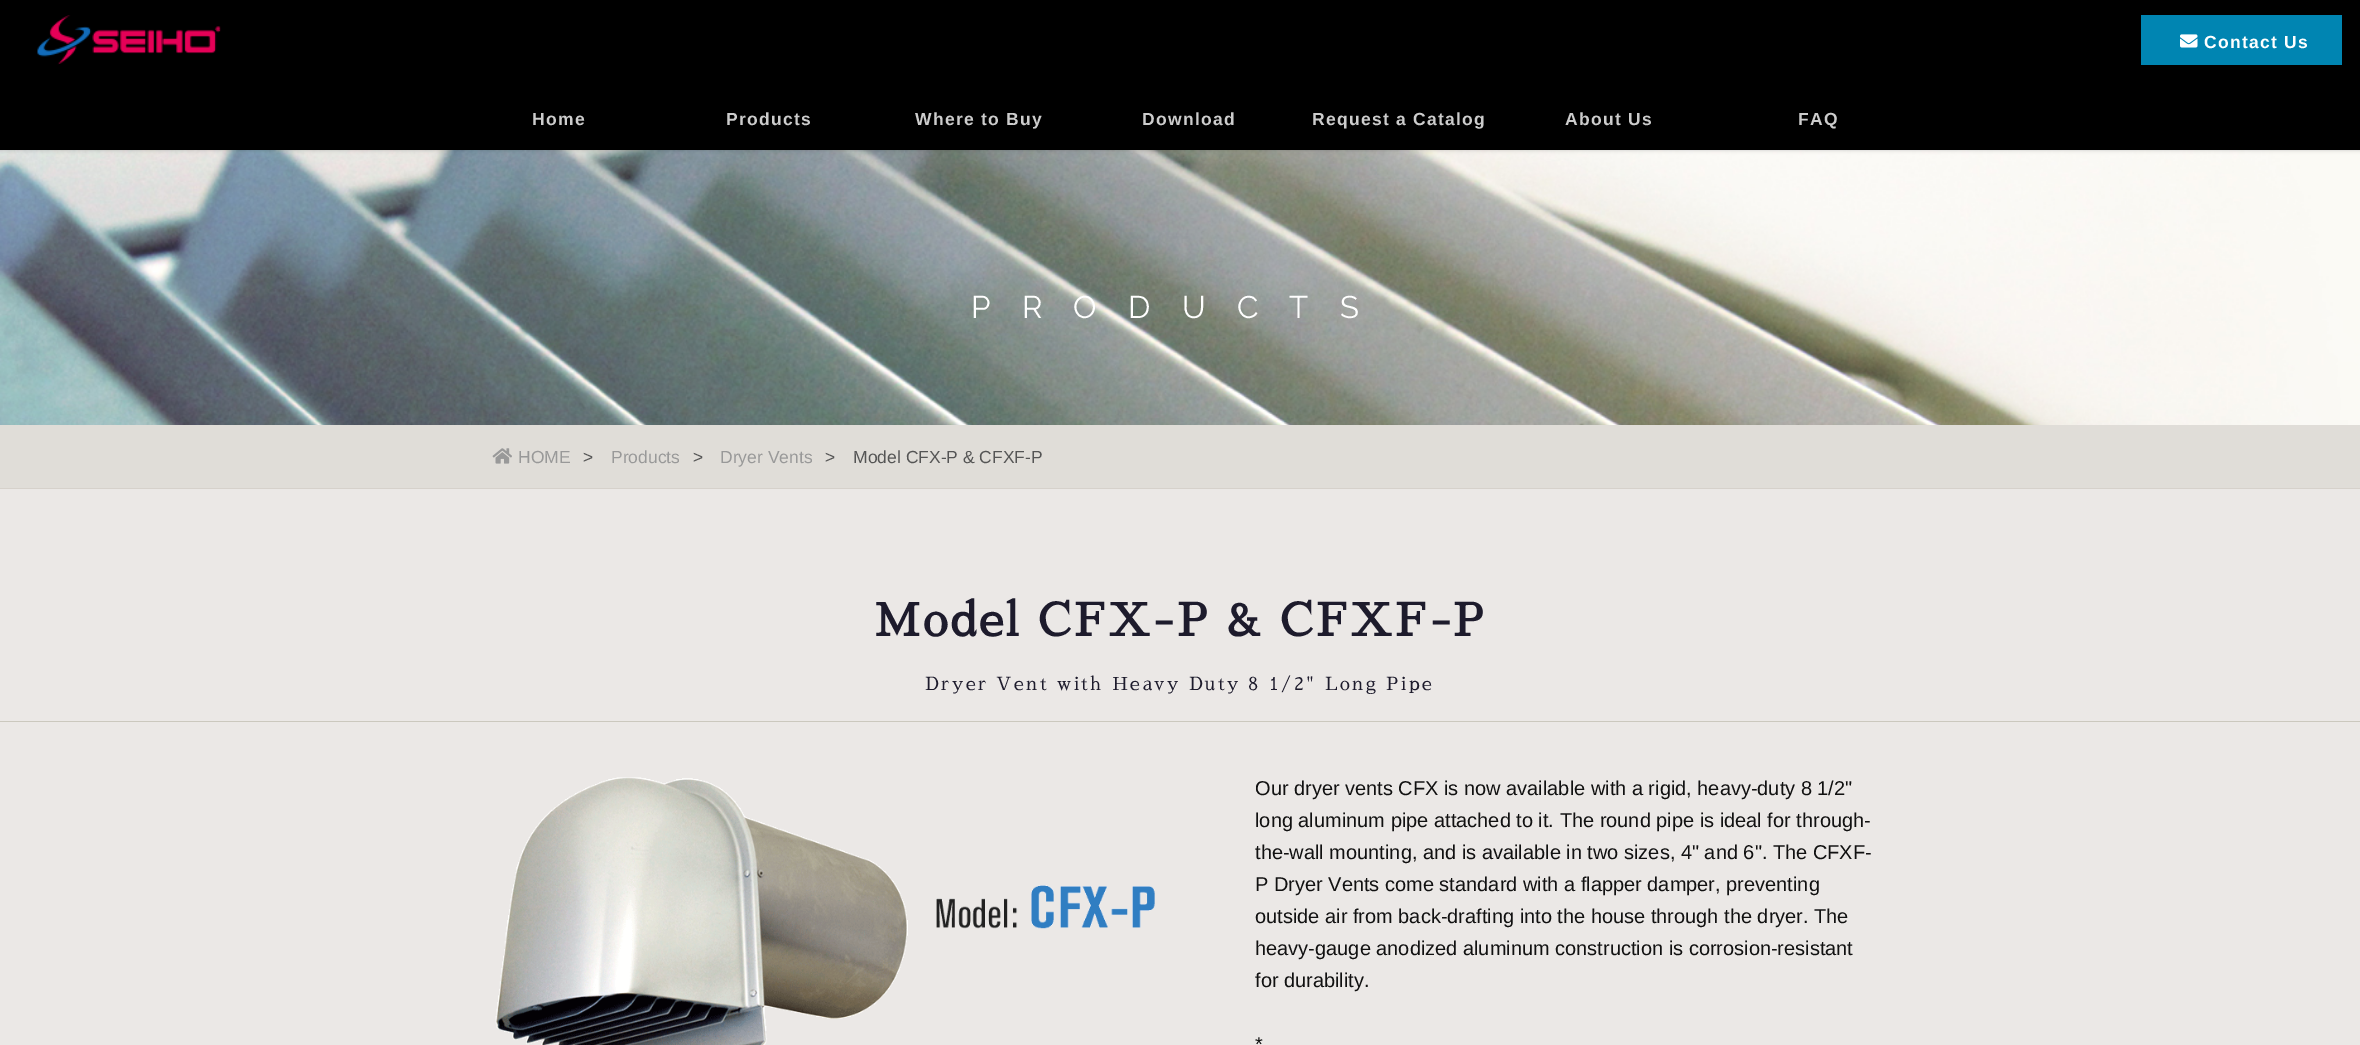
%!PS-Adobe-3.0
%%BoundingBox: 0 0 2360 1045
%%LanguageLevel: 3
%%Pages: 1
%%EndComments
%%BeginProlog
/setalpha { dup .setfillconstantalpha .setstrokeconstantalpha } def
/rrect { 5 dict begin { /r /h /w /y /x } { exch def } forall
  x r add y moveto x w add y 2 copy h add r arct x w add y h add x 1 index r arct
  x y h add x y r arct x y 2 copy exch w add exch r arct closepath end } def
/softshadow { 12 dict begin { /a /b /q /h /w /y /x } { exch def } forall gsave /was 0 def
  9 -2 -9 { dup b mul 4 div /e exch def 1 sub .425 mul 2.718 exch exp 1 add a .99 .min exch div /now exch def
    1 1 now sub 1 was sub div sub setalpha /was now def
    w h .min e 2 mul add 0 gt { x e sub y e sub w e 2 mul add h e 2 mul add
      q e add b .6 mul add w h .min 2 div e add .min 0 .max rrect fill } if } for grestore end } def
/drawimage { 5 dict begin { /h /w /y /x /name } { exch def } forall
  gsave x y translate w h scale
  w h 8 [w 0 0 h 0 0] name (r) file false 3 colorimage grestore end } def
%%EndProlog
%%BeginSetup
<< /PageSize [2360 1045] /PageUsesTransparency true >> setpagedevice
%%EndSetup
%%Page: 1 1
0 .pushpdf14devicefilter
0 1045 translate 1 -1 scale
4 setmiterlimit
0.922 0.91 0.902 setrgbcolor
0 0 2360 1045 rectfill
(images/3.raw) 0 150 2360 275 drawimage
0 setgray
0 0 2360 150 0 2 0.2 softshadow
0 0 2360 150 rectfill
(images/1.raw) 37 15 184 50 drawimage
0 0.522 0.698 setrgbcolor
2141 15 201 50 rectfill
(images/2.raw) 2180 34 18 14 drawimage
0.878 0.867 0.847 setrgbcolor
0 425 2360 63 rectfill
0.839 0.82 0.796 setrgbcolor
0 488 2360 1 rectfill
(images/4.raw) 492 448 20 16 drawimage
0.796 0.784 0.745 setrgbcolor
0 721 2360 1 rectfill
(images/5.raw) 495 777 660 268 drawimage
/LiberationSans-Bold [17.5 0 0 -17.5 0 0] selectfont
1 setgray
2204 48 moveto 1.25 0 (Contact Us) ashow
0.8 setgray
532 125 moveto 1.25 0 (Home) ashow
726 125 moveto 1.25 0 (Products) ashow
915 125 moveto 1.25 0 (Where to Buy) ashow
1142 125 moveto 1.25 0 (Download) ashow
1312 125 moveto 1.25 0 (Request a Catalog) ashow
1565 125 moveto 1.25 0 (About Us) ashow
1798 125 moveto 1.25 0 (FAQ) ashow
/Raleway-Thin [31.25 0 0 -31.25 0 0] selectfont
1 setgray
971 318 moveto 31.25 0 (PRODUCTS) ashow
/LiberationSans-Regular [17.5 0 0 -17.5 0 0] selectfont
0.6 setgray
518 463 moveto (HOME) show
0.333 setgray
583 463 moveto (>) show
0.6 setgray
611 463 moveto (Products) show
0.333 setgray
693 463 moveto (>) show
0.6 setgray
720 463 moveto (Dryer Vents) show
0.333 setgray
825 463 moveto (>) show
853 463 moveto (Model CFX-P & CFXF-P) show
/SawarabiMincho-Bold [45 0 0 -45 0 0] selectfont
0.114 0.106 0.173 setrgbcolor
874 636 moveto 2.5 0 (Model CFX-P & CFXF-P) ashow
/SawarabiMincho-Regular [18 0 0 -18 0 0] selectfont
925 690 moveto 2.5 0 (Dryer Vent with Heavy Duty 8 1/2" Long Pipe) ashow
/LiberationSans-Regular [20 0 0 -20 0 0] selectfont
0.067 setgray
1255 795 moveto (Our dryer vents CFX is now available with a rigid, heavy-duty 8 1/2") show
1255 827 moveto (long aluminum pipe attached to it. The round pipe is ideal for through-) show
1255 859 moveto (the-wall mounting, and is available in two sizes, 4" and 6". The CFXF-) show
1255 891 moveto (P Dryer Vents come standard with a flapper damper, preventing) show
1255 923 moveto (outside air from back-drafting into the house through the dryer. The) show
1255 955 moveto (heavy-gauge anodized aluminum construction is corrosion-resistant) show
1255 987 moveto (for durability.) show
1255 1051 moveto (*) show
.poppdf14devicefilter showpage
%%EOF
